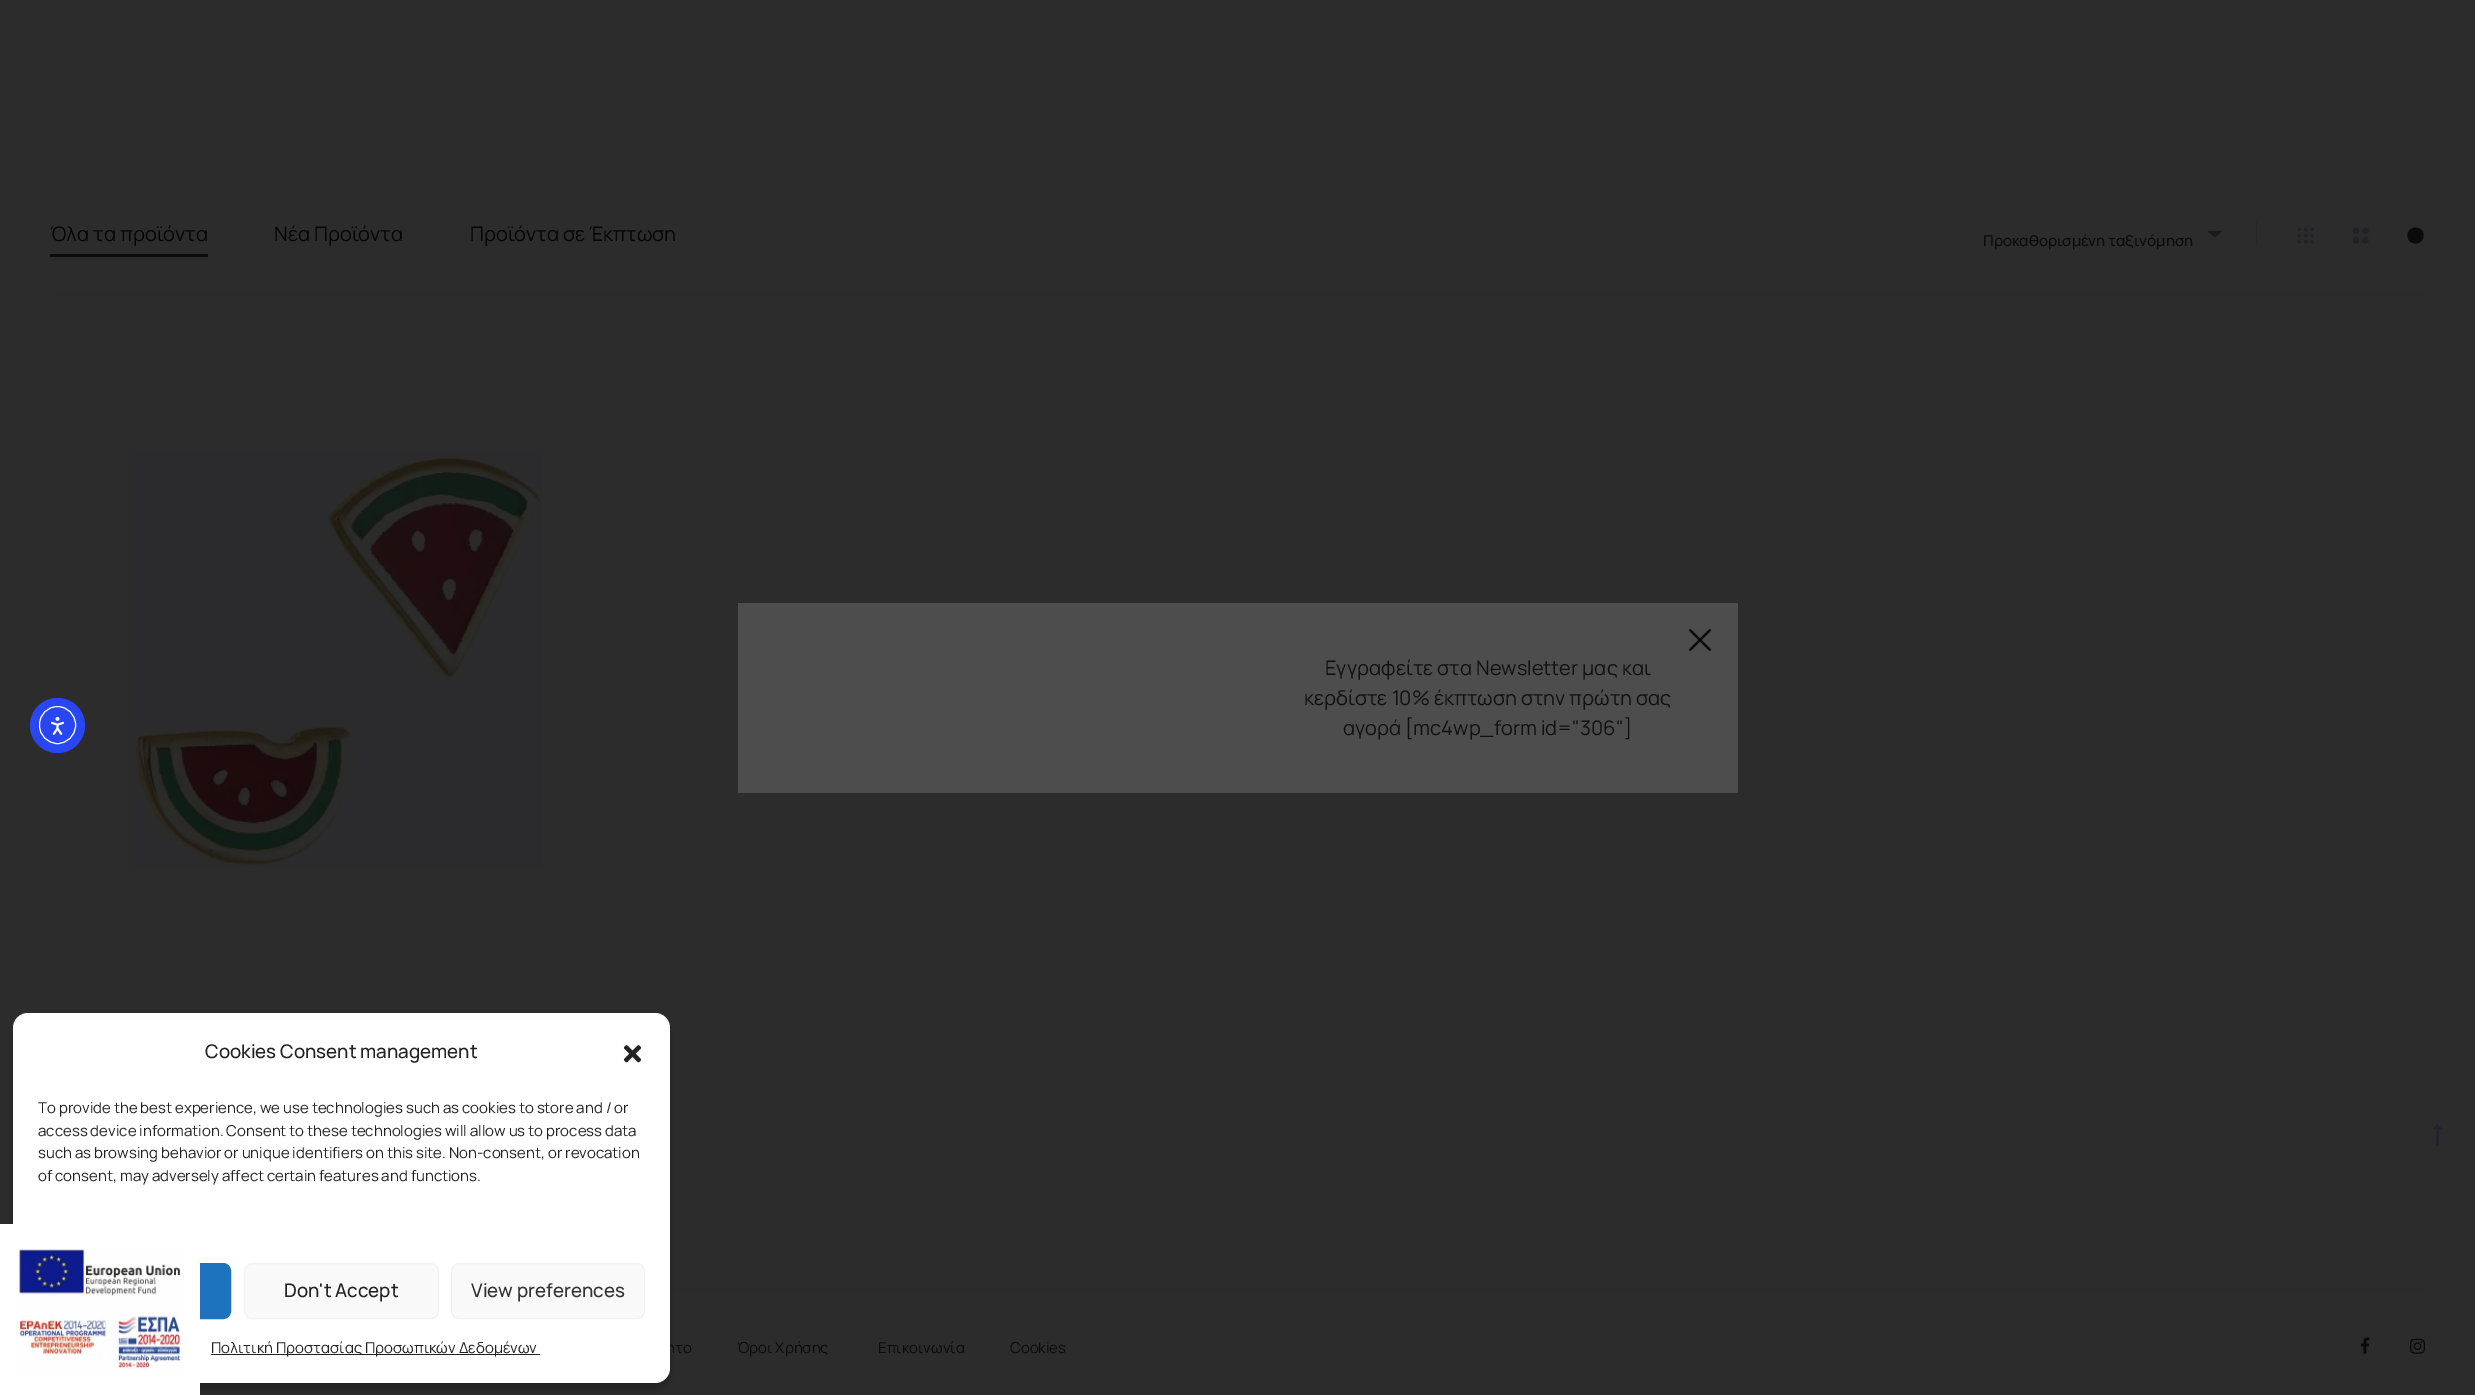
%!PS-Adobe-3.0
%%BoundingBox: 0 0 2475 1395
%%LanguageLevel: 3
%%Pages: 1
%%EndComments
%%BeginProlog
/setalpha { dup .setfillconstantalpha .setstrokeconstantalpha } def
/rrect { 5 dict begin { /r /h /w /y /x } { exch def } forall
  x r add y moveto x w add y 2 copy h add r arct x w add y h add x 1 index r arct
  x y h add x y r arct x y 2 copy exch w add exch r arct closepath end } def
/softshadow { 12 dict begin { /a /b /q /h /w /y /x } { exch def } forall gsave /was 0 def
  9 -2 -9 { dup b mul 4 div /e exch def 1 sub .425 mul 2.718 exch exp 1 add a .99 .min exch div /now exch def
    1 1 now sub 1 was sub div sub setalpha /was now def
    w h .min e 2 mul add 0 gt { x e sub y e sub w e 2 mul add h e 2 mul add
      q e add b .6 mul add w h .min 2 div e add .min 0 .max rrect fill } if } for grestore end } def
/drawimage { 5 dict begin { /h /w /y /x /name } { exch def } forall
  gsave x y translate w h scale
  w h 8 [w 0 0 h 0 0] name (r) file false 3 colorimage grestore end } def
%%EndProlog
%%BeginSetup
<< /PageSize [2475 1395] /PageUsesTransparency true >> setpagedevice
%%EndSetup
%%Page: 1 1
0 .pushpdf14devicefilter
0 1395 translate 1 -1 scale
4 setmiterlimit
0.173 0.173 0.176 setrgbcolor
0 0 2475 1395 rectfill
0.161 0.165 0.169 setrgbcolor
50 294 2375 1 rectfill
0.043 0.043 0.051 setrgbcolor
50 254 158 3 rectfill
0.157 0.157 0.165 setrgbcolor
2256 220 1 25 rectfill
0.106 0.106 0.114 setrgbcolor
newpath 2207.5 231 moveto 2222.5 231 lineto 2215 237.5 lineto closepath fill
(images/1.raw) 2297 227 17 17 drawimage
(images/2.raw) 2352 227 17 17 drawimage
0.043 0.043 0.051 setrgbcolor
newpath 2423.5 235.5 moveto 2423.5 246 2407.5 246 2407.5 235.5 curveto 2407.5 225 2423.5 225 2423.5 235.5 curveto closepath fill
(images/3.raw) 133 450 409 418 drawimage
0.161 0.165 0.169 setrgbcolor
670 1289 1755 1 rectfill
(images/4.raw) 2360 1337 10 17 drawimage
(images/5.raw) 2410 1338 15 16 drawimage
0.157 0.278 0.953 setrgbcolor
newpath 57.5 725.5 27.5 0 360 arc closepath fill
1 setgray
39.5 706.5 36 37 18 rrect stroke
(images/6.raw) 51 716 13 19 drawimage
0.302 setgray
738 603 1000 190 rectfill
(images/7.raw) 1688 628 24 24 drawimage
0 setgray
13 1020 657 370 15 4 0.23 softshadow
0.137 0.137 0.173 setrgbcolor
newpath 2436 1129 moveto 2436 1146 lineto 2439 1146 lineto 2439 1129 lineto 2442.5 1129 lineto 2437.5 1124 lineto 2432.5 1129 lineto closepath fill
/Manrope-Regular [20 0 0 -20 0 0] selectfont
0.02 0.02 0.027 setrgbcolor
50 241 moveto (Όλα τα προϊόντα) show
274 241 moveto (Νέα Προϊόντα) show
470 241 moveto (Προϊόντα σε Έκπτωση) show
/Manrope-Medium [15 0 0 -15 0 0] selectfont
0.043 0.043 0.051 setrgbcolor
1983 246 moveto (Προκαθορισμένη ταξινόμηση) show
/Manrope-Regular [15 0 0 -15 0 0] selectfont
666 1353 moveto (ητο) show
737 1353 moveto (Όροι Χρήσης) show
878 1353 moveto (Επικοινωνία) show
1010 1353 moveto (Cookies) show
/Manrope-Regular [20 0 0 -20 0 0] selectfont
0.067 setgray
1325 675 moveto (Εγγραφείτε στα Newsletter μας και) show
1304 705 moveto (κερδίστε 10% έκπτωση στην πρώτη σας) show
1343 735 moveto (αγορά [mc4wp_form id="306"]) show
1 setgray
13 1013 657 370 15 rrect fill
/Manrope-Medium [18.75 0 0 -18.75 0 0] selectfont
0.133 setgray
205 1058 moveto (Cookies Consent management) show
(images/8.raw) 623 1045 19 18 drawimage
/Manrope-Regular [15 0 0 -15 0 0] selectfont
38 1113 moveto (To provide the best experience, we use technologies such as cookies to store and / or) show
38 1136 moveto (access device information. Consent to these technologies will allow us to process data) show
38 1158 moveto (such as browsing behavior or unique identifiers on this site. Non-consent, or revocation) show
38 1181 moveto (of consent, may adversely affect certain features and functions.) show
0.118 0.451 0.745 setrgbcolor
38.5 1263.5 192 55 7.5 rrect gsave fill grestore
stroke
0.976 setgray
244.5 1263.5 194 55 7.5 rrect gsave fill grestore
0.949 setgray
stroke
/Manrope-Medium [18.75 0 0 -18.75 0 0] selectfont
0.133 setgray
284 1297 moveto (Don't Accept) show
0.976 setgray
451.5 1263.5 193 55 7.5 rrect gsave fill grestore
0.949 setgray
stroke
0.2 setgray
471 1297 moveto (View preferences) show
0.133 setgray
211 1354 329 1 rectfill
/Manrope-Regular [15 0 0 -15 0 0] selectfont
211 1353 moveto (Πολιτική Προστασίας Προσωπικών Δεδομένων) show
1 setgray
0 1224 200 171 rectfill
(images/9.raw) 16 1249 167 121 drawimage
.poppdf14devicefilter showpage
%%EOF
